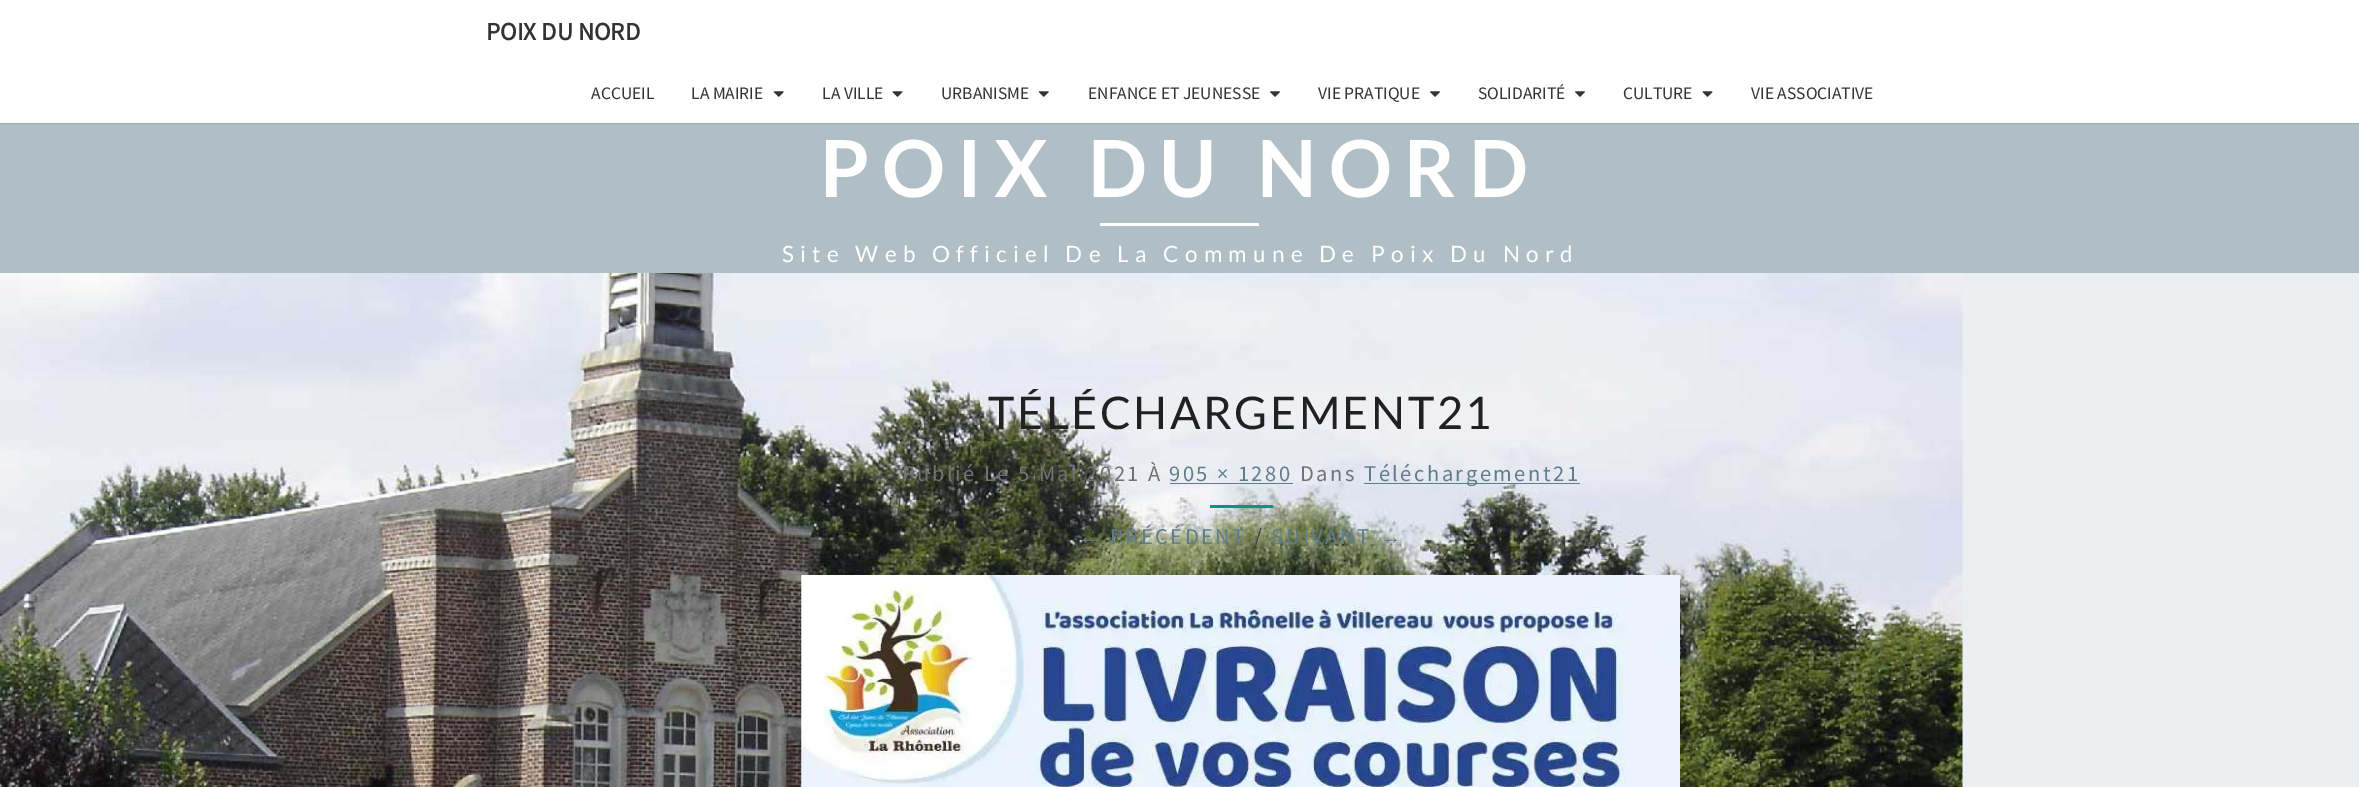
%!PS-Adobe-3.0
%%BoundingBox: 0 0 2359 787
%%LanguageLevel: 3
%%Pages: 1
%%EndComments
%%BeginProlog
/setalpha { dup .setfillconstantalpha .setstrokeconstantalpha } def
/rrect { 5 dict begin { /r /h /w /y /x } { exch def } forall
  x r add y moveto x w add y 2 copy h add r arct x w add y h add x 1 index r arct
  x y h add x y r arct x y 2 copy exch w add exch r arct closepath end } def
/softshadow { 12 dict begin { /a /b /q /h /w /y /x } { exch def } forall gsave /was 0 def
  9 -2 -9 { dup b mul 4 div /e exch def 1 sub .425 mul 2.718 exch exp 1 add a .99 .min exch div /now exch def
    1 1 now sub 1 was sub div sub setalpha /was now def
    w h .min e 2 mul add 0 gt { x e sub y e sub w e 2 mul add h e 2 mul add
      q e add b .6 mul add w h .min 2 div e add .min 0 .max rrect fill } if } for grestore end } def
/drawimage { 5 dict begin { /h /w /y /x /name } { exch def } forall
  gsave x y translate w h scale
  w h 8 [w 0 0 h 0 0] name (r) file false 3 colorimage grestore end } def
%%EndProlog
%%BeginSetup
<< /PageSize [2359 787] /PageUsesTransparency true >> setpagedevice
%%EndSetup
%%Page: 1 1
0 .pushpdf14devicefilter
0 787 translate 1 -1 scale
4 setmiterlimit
0.925 0.937 0.945 setrgbcolor
0 0 2359 787 rectfill
(images/1.raw) 0 273 1963 514 drawimage
0.69 0.745 0.773 setrgbcolor
0 123 2359 150 rectfill
0.392 setgray
0 1 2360 123 0 0.5 0.2 softshadow
1 setgray
0 0 2359 123 rectfill
(images/2.raw) 773 91 11 6 drawimage
(images/3.raw) 892 91 11 6 drawimage
(images/2.raw) 1038 91 11 6 drawimage
(images/4.raw) 1270 91 10 6 drawimage
(images/4.raw) 1430 91 10 6 drawimage
(images/4.raw) 1575 91 10 6 drawimage
(images/3.raw) 1702 91 11 6 drawimage
1100 223 159 3 rectfill
0.376 0.49 0.545 setrgbcolor
1170 483 123 1 rectfill
1364 483 216 1 rectfill
0 0.588 0.533 setrgbcolor
1210 505 63 3 rectfill
(images/5.raw) 801 575 879 212 drawimage
/SourceSansPro-Bold [25 0 0 -25 0 0] selectfont
0.2 setgray
486 40 moveto (POIX DU NORD) show
/SourceSansPro-Regular [17.5 0 0 -17.5 0 0] selectfont
591 99 moveto (ACCUEIL) show
691 99 moveto (LA MAIRIE) show
822 99 moveto (LA VILLE) show
941 99 moveto (URBANISME) show
1088 99 moveto (ENFANCE ET JEUNESSE) show
1318 99 moveto (VIE PRATIQUE) show
1478 99 moveto (SOLIDARITÉ) show
1623 99 moveto (CULTURE) show
1751 99 moveto (VIE ASSOCIATIVE) show
/Lato-Bold [78.75 0 0 -78.75 0 0] selectfont
1 setgray
820 197 moveto 12.5 0 (POIX DU NORD) ashow
/Lato-Regular [22.5 0 0 -22.5 0 0] selectfont
782 262 moveto 6.25 0 (Site Web Officiel De La Commune De Poix Du Nord) ashow
/Lato-Regular [45 0 0 -45 0 0] selectfont
0.129 setgray
988 429 moveto 2.5 0 (TÉLÉCHARGEMENT21) ashow
/SourceSansPro-Regular [22.5 0 0 -22.5 0 0] selectfont
0.447 setgray
902 481 moveto 2.5 0 (Publié Le 5 Mai 2021 À) ashow
0.376 0.49 0.545 setrgbcolor
1169 481 moveto 2.5 0 (905 × 1280) ashow
0.447 setgray
1300 481 moveto 2.5 0 (Dans) ashow
0.376 0.49 0.545 setrgbcolor
1364 481 moveto 2.5 0 (Téléchargement21) ashow
/LiberationSans-Regular [22.5 0 0 -22.5 0 0] selectfont
1078 544 moveto 2.5 0 (←) ashow
/SourceSansPro-Regular [22.5 0 0 -22.5 0 0] selectfont
1110 544 moveto 2.5 0 (PRÉCÉDENT) ashow
0.259 setgray
1254 544 moveto 2.5 0 (/) ashow
0.376 0.49 0.545 setrgbcolor
1271 544 moveto 2.5 0 (SUIVANT) ashow
/LiberationSans-Regular [22.5 0 0 -22.5 0 0] selectfont
1379 544 moveto 2.5 0 (→) ashow
.poppdf14devicefilter showpage
%%EOF
